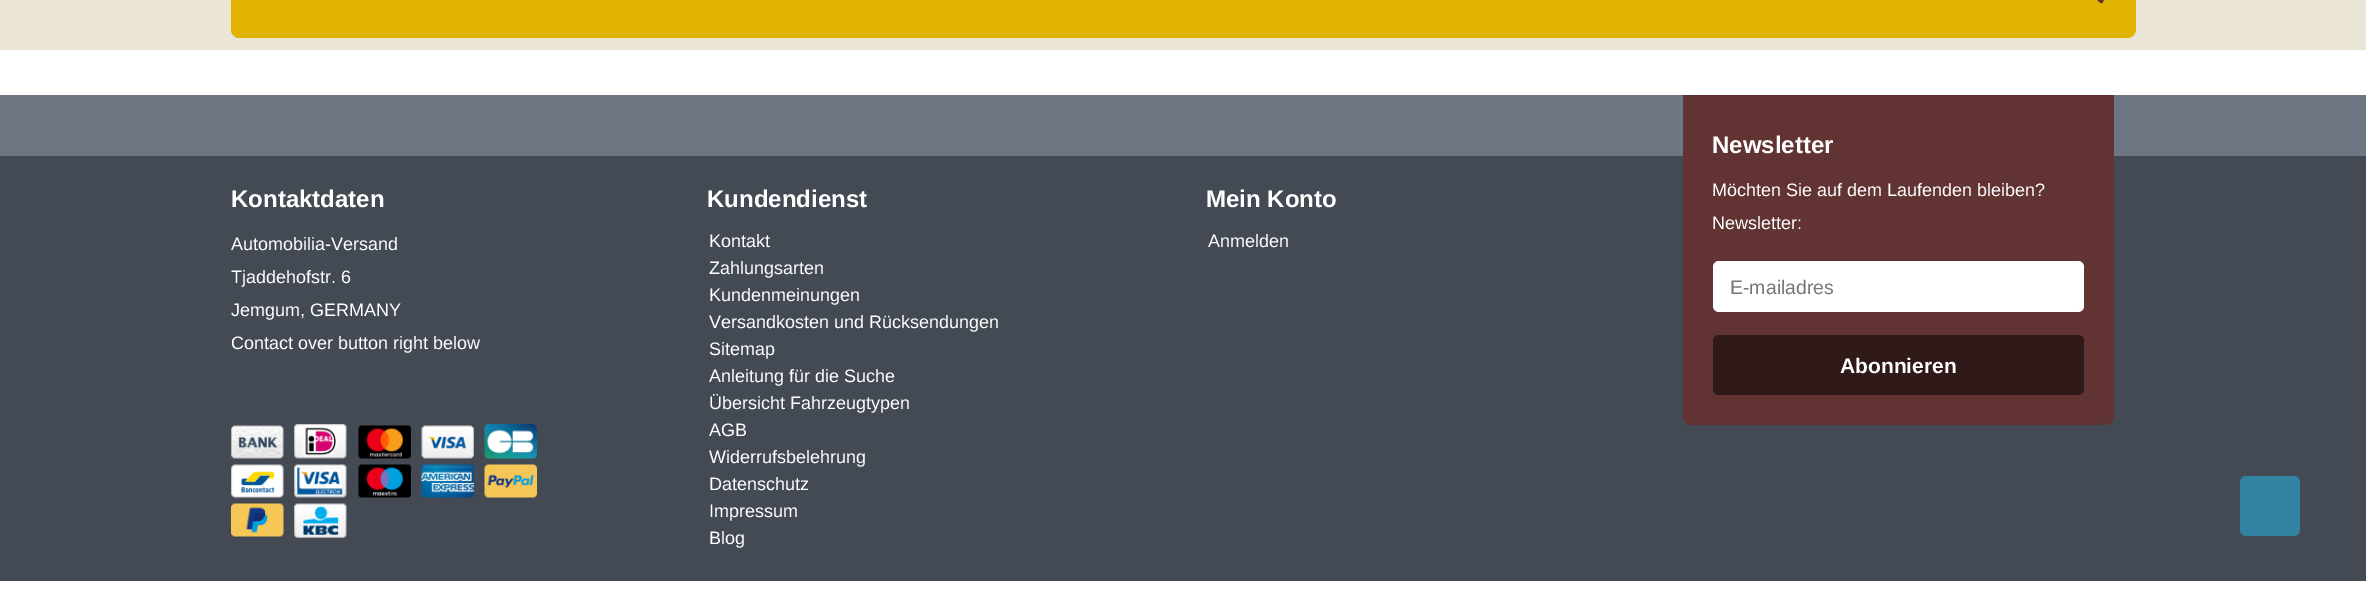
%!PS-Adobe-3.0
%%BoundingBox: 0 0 2366 603
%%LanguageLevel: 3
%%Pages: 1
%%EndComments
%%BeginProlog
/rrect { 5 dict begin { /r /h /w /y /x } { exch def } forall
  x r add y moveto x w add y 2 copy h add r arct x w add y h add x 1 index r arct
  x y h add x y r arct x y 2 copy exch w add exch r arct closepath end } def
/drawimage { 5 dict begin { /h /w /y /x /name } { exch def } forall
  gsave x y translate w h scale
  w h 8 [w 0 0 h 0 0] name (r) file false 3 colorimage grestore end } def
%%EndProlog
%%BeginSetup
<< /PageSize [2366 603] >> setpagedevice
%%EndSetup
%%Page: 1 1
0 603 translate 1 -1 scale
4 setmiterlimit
1 setgray
0 0 2366 603 rectfill
0.922 0.898 0.839 setrgbcolor
0 0 2366 50 rectfill
0.878 0.702 0 setrgbcolor
231 -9 1905 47 9 rrect fill
newpath 240 -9 moveto 309 -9 lineto 309 38 lineto 240 38 lineto 235 38 231 34 231 29 curveto 231 0 lineto 231 -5 235 -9 240 -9 curveto closepath fill
(images/1.raw) 2097 0 7 4 drawimage
0.427 0.463 0.51 setrgbcolor
0 95 2366 61 rectfill
0.263 0.29 0.329 setrgbcolor
0 156 2366 425 rectfill
(images/2.raw) 231 425 53 34 drawimage
(images/3.raw) 294 424 53 35 drawimage
(images/4.raw) 358 425 53 34 drawimage
(images/5.raw) 421 425 53 34 drawimage
(images/6.raw) 484 424 53 35 drawimage
(images/7.raw) 231 464 53 34 drawimage
(images/8.raw) 294 464 53 34 drawimage
(images/9.raw) 358 464 53 34 drawimage
(images/10.raw) 421 464 53 34 drawimage
(images/11.raw) 484 464 53 34 drawimage
(images/12.raw) 231 503 53 34 drawimage
(images/13.raw) 294 503 53 35 drawimage
0.38 0.2 0.2 setrgbcolor
newpath 1683 95 moveto 2114 95 lineto 2114 416 lineto 2114 421 2110 425 2105 425 curveto 1692 425 lineto 1687 425 1683 421 1683 416 curveto closepath fill
1 setgray
1713 261 371 51 6 rrect fill
0.188 0.098 0.098 setrgbcolor
1713 335 371 60 6 rrect fill
0.196 0.51 0.631 setrgbcolor
2240 476 60 60 6 rrect fill
/LiberationSans-Bold [24 0 0 -24 0 0] selectfont
1 setgray
231 207 moveto (Kontaktdaten) show
/LiberationSans-Regular [18 0 0 -18 0 0] selectfont
231 250 moveto (Automobilia-Versand) show
231 283 moveto (Tjaddehofstr. 6) show
231 316 moveto (Jemgum, GERMANY) show
231 349 moveto (Contact over button right below) show
/LiberationSans-Bold [24 0 0 -24 0 0] selectfont
707 207 moveto (Kundendienst) show
/LiberationSans-Regular [18 0 0 -18 0 0] selectfont
709 247 moveto (Kontakt) show
709 274 moveto (Zahlungsarten) show
709 301 moveto (Kundenmeinungen) show
709 328 moveto (Versandkosten und Rücksendungen) show
709 355 moveto (Sitemap) show
709 382 moveto (Anleitung für die Suche) show
709 409 moveto (Übersicht Fahrzeugtypen) show
709 436 moveto (AGB) show
709 463 moveto (Widerrufsbelehrung) show
709 490 moveto (Datenschutz) show
709 517 moveto (Impressum) show
709 544 moveto (Blog) show
/LiberationSans-Bold [24 0 0 -24 0 0] selectfont
1206 207 moveto (Mein Konto) show
/LiberationSans-Regular [18 0 0 -18 0 0] selectfont
1208 247 moveto (Anmelden) show
/LiberationSans-Bold [24 0 0 -24 0 0] selectfont
1712 153 moveto (Newsletter) show
/LiberationSans-Regular [18 0 0 -18 0 0] selectfont
1712 196 moveto (Möchten Sie auf dem Laufenden bleiben?) show
1712 229 moveto (Newsletter:) show
/LiberationSans-Regular [19.5 0 0 -19.5 0 0] selectfont
0.467 setgray
1730 294 moveto (E-mailadres) show
/LiberationSans-Bold [21 0 0 -21 0 0] selectfont
1 setgray
1840 373 moveto (Abonnieren) show
showpage
%%EOF
